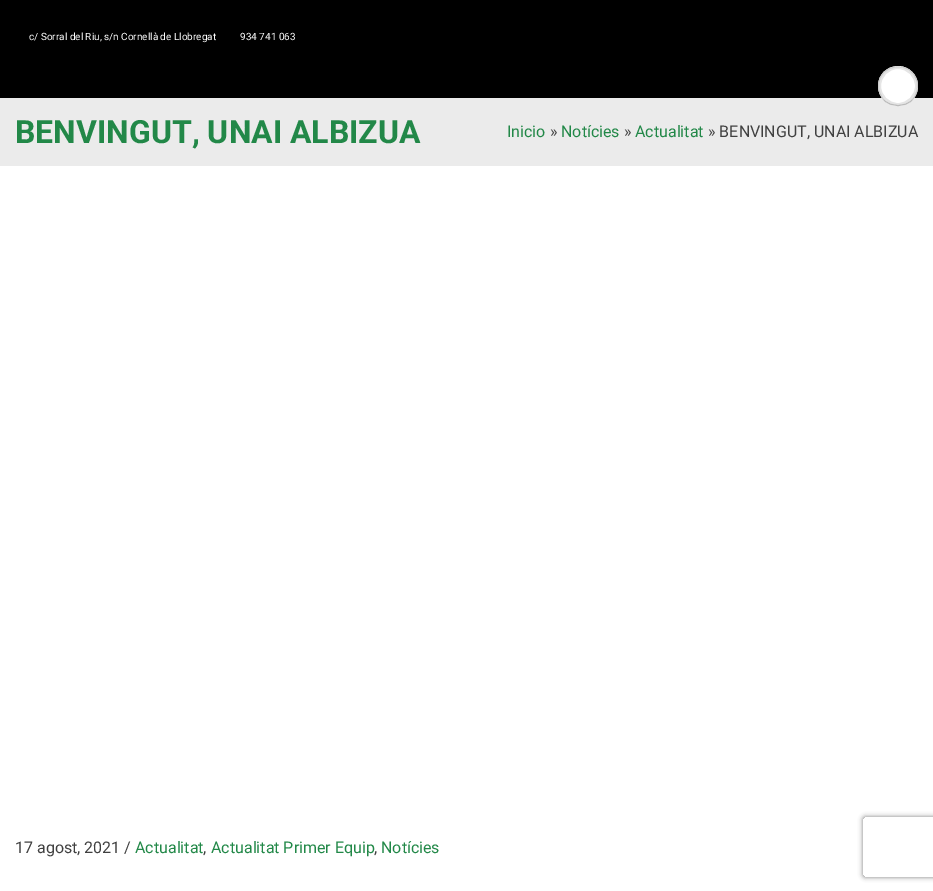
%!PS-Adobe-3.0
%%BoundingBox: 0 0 933 891
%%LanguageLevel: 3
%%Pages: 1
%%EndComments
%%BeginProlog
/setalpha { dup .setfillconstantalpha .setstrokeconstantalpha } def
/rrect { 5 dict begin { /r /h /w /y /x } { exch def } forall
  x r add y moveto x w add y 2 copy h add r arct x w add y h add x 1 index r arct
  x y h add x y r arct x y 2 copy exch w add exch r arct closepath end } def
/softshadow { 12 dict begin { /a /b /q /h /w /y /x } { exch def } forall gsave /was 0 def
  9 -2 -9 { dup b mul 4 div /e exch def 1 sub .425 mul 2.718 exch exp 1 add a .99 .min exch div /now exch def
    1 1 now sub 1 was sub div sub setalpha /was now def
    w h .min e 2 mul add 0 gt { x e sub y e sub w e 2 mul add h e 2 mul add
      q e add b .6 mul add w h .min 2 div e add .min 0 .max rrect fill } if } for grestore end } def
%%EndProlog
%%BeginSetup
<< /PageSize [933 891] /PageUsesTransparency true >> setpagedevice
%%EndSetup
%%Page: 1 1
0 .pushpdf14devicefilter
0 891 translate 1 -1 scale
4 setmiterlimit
1 setgray
0 0 933 891 rectfill
0 setgray
0 0 933 98 rectfill
0.922 setgray
0 98 933 68 rectfill
1 setgray
newpath 898 86 20 0 360 arc closepath fill
0.898 setgray
2 setlinewidth
newpath 898 86 18 0 360 arc closepath stroke
0.733 setgray
1 setlinewidth
newpath 912 100 moveto 904.5 107.5 891.5 107.5 884 100 curveto stroke
0.8 setgray
newpath 884 100 moveto 880.5 96 878.5 91 878.5 86 curveto 878.5 62.5 912.5 59.5 917 82 curveto 918.5 88.5 916.5 95 912 100 curveto stroke
gsave
newpath 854 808 moveto 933 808 lineto 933 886 lineto 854 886 lineto closepath 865 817 moveto 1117 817 lineto 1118 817 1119 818 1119 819 curveto 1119 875 lineto 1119 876 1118 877 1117 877 curveto 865 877 lineto 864 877 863 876 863 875 curveto 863 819 lineto 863 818 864 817 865 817 curveto closepath eoclip newpath
0.502 setgray
863 817 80 60 2 2.5 1 softshadow
grestore
/Roboto-Regular [10 0 0 -10 0 0] selectfont
1 setgray
29 40 moveto (c/ Sorral del Riu, s/n Cornellà de Llobregat) show
240 40 moveto (934 741 063) show
/Roboto-Bold [32 0 0 -32 0 0] selectfont
0.133 0.533 0.282 setrgbcolor
15 143 moveto (BENVINGUT, UNAI ALBIZUA) show
/Roboto-Regular [16 0 0 -16 0 0] selectfont
507 137 moveto (Inicio) show
0.251 setgray
550 137 moveto (») show
0.133 0.533 0.282 setrgbcolor
561 137 moveto (Notícies) show
0.251 setgray
624 137 moveto (») show
0.133 0.533 0.282 setrgbcolor
635 137 moveto (Actualitat) show
0.251 setgray
708 137 moveto (» BENVINGUT, UNAI ALBIZUA) show
15 853 moveto (17 agost, 2021 /) show
0.133 0.533 0.282 setrgbcolor
135 853 moveto (Actualitat) show
0.251 setgray
203 853 moveto (,) show
0.133 0.533 0.282 setrgbcolor
211 853 moveto (Actualitat Primer Equip) show
0.251 setgray
374 853 moveto (,) show
0.133 0.533 0.282 setrgbcolor
381 853 moveto (Notícies) show
.poppdf14devicefilter showpage
%%EOF
